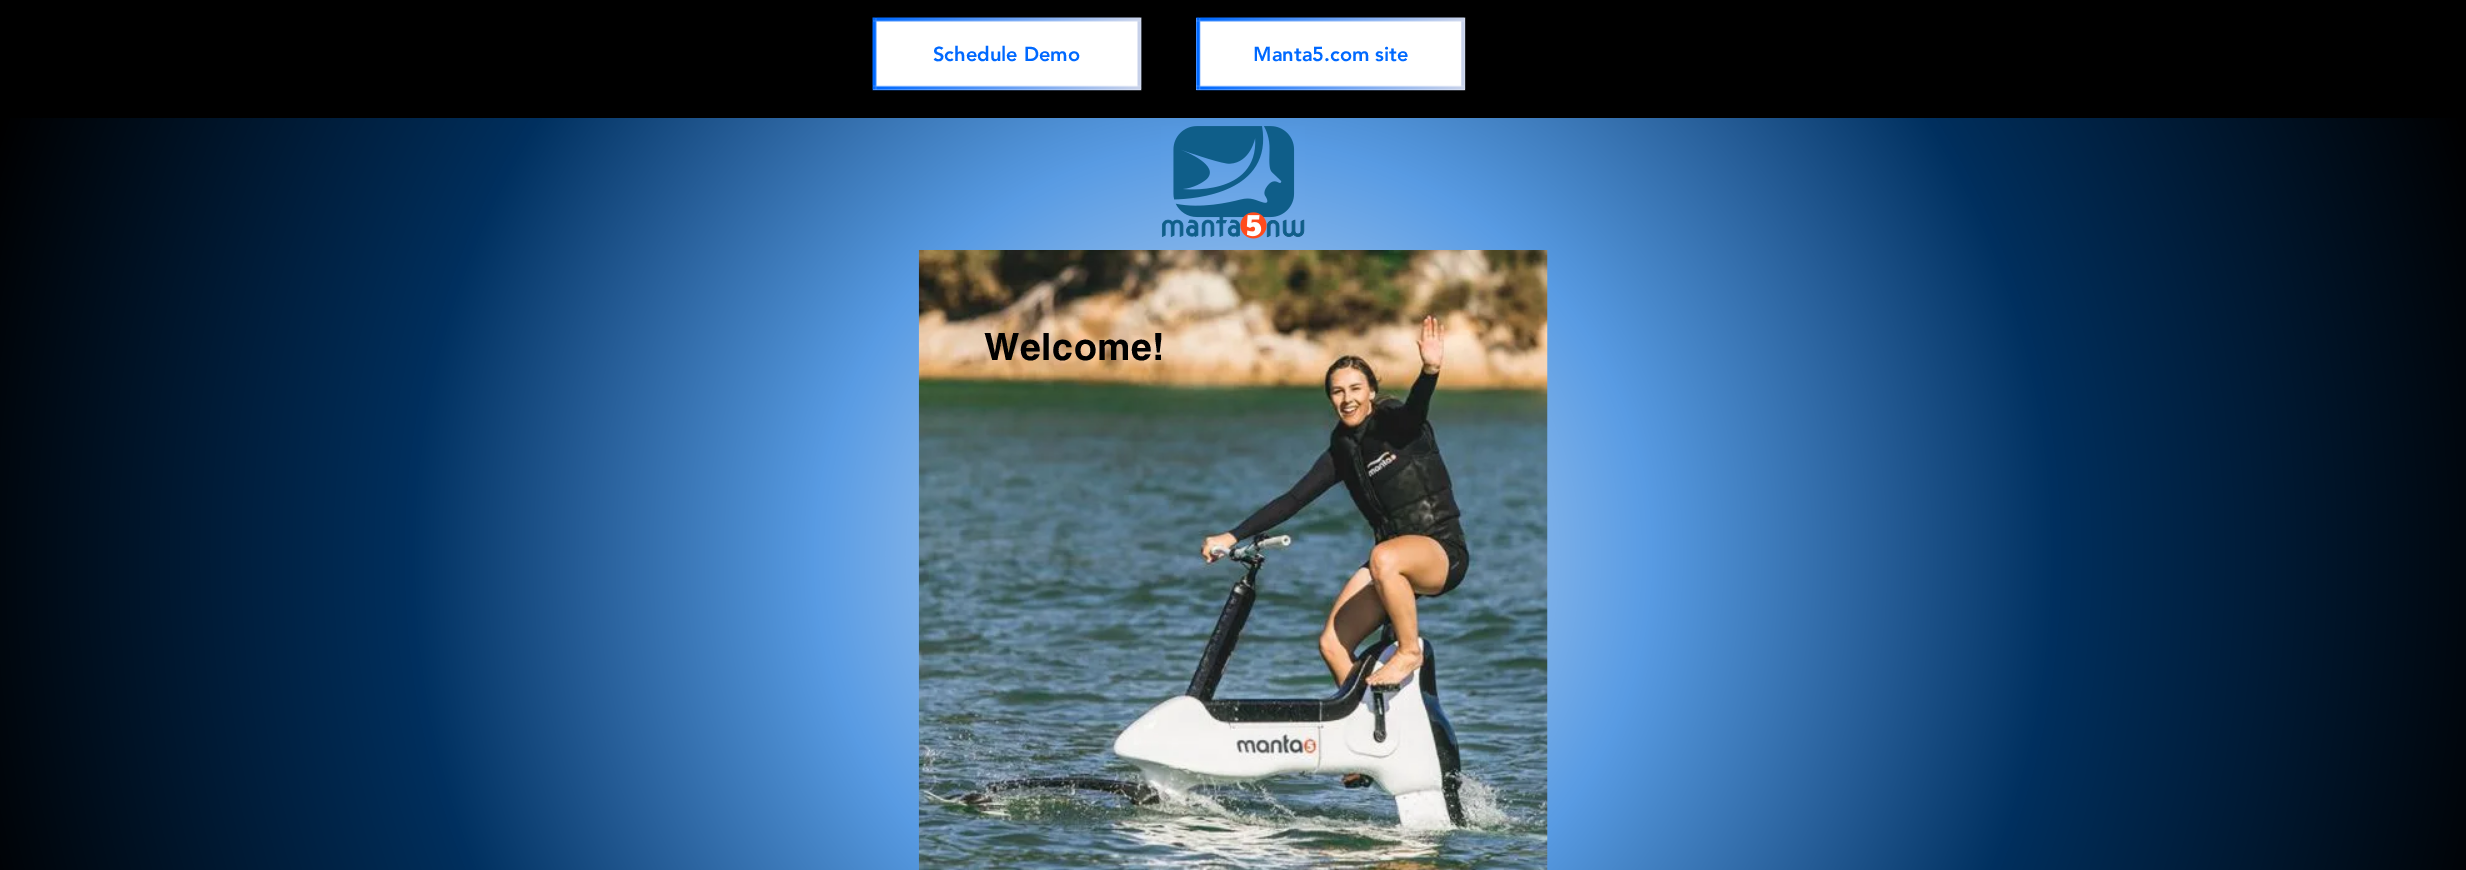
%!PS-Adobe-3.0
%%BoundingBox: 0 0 2466 870
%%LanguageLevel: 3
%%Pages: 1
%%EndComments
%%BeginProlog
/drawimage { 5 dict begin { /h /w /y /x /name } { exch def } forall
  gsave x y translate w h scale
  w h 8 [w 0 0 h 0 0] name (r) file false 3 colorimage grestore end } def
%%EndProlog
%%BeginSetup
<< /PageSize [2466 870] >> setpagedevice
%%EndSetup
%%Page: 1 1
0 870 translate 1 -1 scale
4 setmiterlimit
0 setgray
0 0 2466 870 rectfill
1 setgray
873 18 268 72 rectfill
(images/1.raw) 872 17 270 74 drawimage
1196 18 269 72 rectfill
(images/2.raw) 1196 17 270 74 drawimage
gsave newpath 0 118 moveto 2466 118 lineto 2466 870 lineto 0 870 lineto closepath clip newpath 1233 557 translate 1309 1309 scale
<< /ShadingType 3 /ColorSpace /DeviceRGB /Coords [0 0 0 0 0 1] /Extend [true true] /Function << /FunctionType 3 /Domain [0 1] /Functions [<< /FunctionType 2 /Domain [0 1] /C0 [0.894 0.922 0.988] /C1 [0.345 0.608 0.89] /N 1 >> << /FunctionType 2 /Domain [0 1] /C0 [0.345 0.608 0.89] /C1 [0 0.184 0.369] /N 1 >> << /FunctionType 2 /Domain [0 1] /C0 [0 0.184 0.369] /C1 [0 0 0] /N 1 >>] /Bounds [0.32 0.63] /Encode [0 1 0 1 0 1] >> >> shfill grestore
(images/3.raw) 1161 126 144 113 drawimage
(images/4.raw) 918 250 630 620 drawimage
/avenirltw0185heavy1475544-Black [20 0 0 -20 0 0] selectfont
0 0.412 1 setrgbcolor
933 61 moveto (Schedule Demo) show
1253 61 moveto (Manta5.com site) show
/helvetica-Bold [37.5 0 0 -37.5 0 0] selectfont
0 setgray
984 360 moveto 0.5 0 (Welcome!) ashow
showpage
%%EOF
